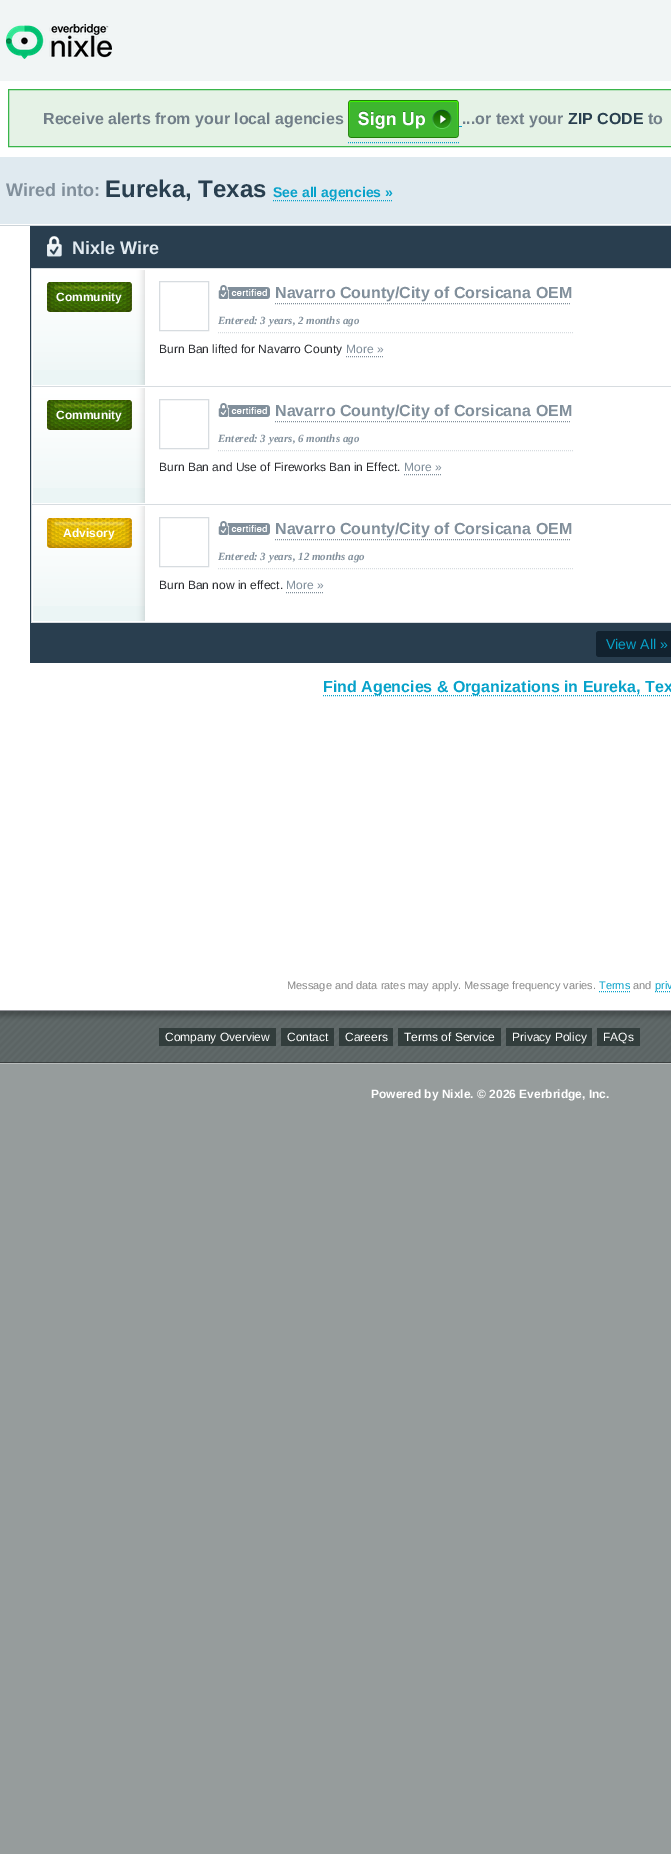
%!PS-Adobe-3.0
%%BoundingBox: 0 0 671 1854
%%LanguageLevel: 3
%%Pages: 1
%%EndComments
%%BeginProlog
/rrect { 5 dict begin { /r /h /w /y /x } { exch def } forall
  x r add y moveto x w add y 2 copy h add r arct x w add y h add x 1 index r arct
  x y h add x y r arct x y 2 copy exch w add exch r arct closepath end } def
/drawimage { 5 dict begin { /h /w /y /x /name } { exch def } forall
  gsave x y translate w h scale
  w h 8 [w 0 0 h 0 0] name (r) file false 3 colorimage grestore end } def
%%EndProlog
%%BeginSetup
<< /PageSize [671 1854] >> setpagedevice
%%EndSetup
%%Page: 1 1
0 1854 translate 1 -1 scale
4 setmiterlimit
0.588 0.612 0.612 setrgbcolor
0 0 671 1854 rectfill
0.945 0.961 0.961 setrgbcolor
0 0 671 81 rectfill
(images/1.raw) 6 24 106 35 drawimage
1 setgray
0 81 671 76 rectfill
0.898 0.949 0.902 setrgbcolor
newpath 8.5 89.5 moveto 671.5 89.5 lineto 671.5 146.5 lineto 8.5 146.5 lineto closepath gsave fill grestore
0.224 0.71 0.29 setrgbcolor
stroke
0.027 0.635 0.792 setrgbcolor
[1 1] 0 setdash
newpath 348 142.5 moveto 459 142.5 lineto stroke
459 126 3 1 rectfill
(images/2.raw) 348 100 111 38 drawimage
0.878 0.918 0.941 setrgbcolor
0 157 671 67 rectfill
1 setgray
0 224 671 1 rectfill
0.027 0.635 0.792 setrgbcolor
newpath 273 200.5 moveto 393 200.5 lineto stroke
1 setgray
0 226 671 784 rectfill
0.804 0.831 0.851 setrgbcolor
0 225 671 1 rectfill
0.161 0.243 0.31 setrgbcolor
30 662 641 1 rectfill
30 226 1 437 rectfill
31 226 640 42 rectfill
0.843 0.863 0.878 setrgbcolor
31 268 640 1 rectfill
(images/3.raw) 47 236 15 21 drawimage
31 269 1 354 rectfill
(images/4.raw) 33 370 112 15 drawimage
32 386 639 1 rectfill
(images/5.raw) 33 270 112 100 drawimage
(images/6.raw) 47 282 85 30 drawimage
[] 0 setdash
159.5 281.5 49 49 rectstroke
(images/7.raw) 218 285 52 14 drawimage
0.506 0.561 0.608 setrgbcolor
[1 1] 0 setdash
newpath 275 303.5 moveto 571 303.5 lineto stroke
0.843 0.863 0.878 setrgbcolor
newpath 218 332.5 moveto 574 332.5 lineto stroke
0.506 0.561 0.608 setrgbcolor
newpath 346 356.5 moveto 383 356.5 lineto stroke
(images/4.raw) 33 488 112 15 drawimage
0.843 0.863 0.878 setrgbcolor
32 504 639 1 rectfill
(images/5.raw) 33 388 112 100 drawimage
(images/6.raw) 47 400 85 30 drawimage
[] 0 setdash
159.5 399.5 49 49 rectstroke
(images/7.raw) 218 403 52 14 drawimage
0.506 0.561 0.608 setrgbcolor
[1 1] 0 setdash
newpath 275 421.5 moveto 571 421.5 lineto stroke
0.843 0.863 0.878 setrgbcolor
newpath 218 450.5 moveto 574 450.5 lineto stroke
0.506 0.561 0.608 setrgbcolor
newpath 404 474.5 moveto 441 474.5 lineto stroke
(images/4.raw) 33 606 112 15 drawimage
0.843 0.863 0.878 setrgbcolor
32 622 639 1 rectfill
(images/5.raw) 33 506 112 100 drawimage
(images/8.raw) 47 518 85 30 drawimage
[] 0 setdash
159.5 517.5 49 49 rectstroke
(images/7.raw) 218 521 52 14 drawimage
0.506 0.561 0.608 setrgbcolor
[1 1] 0 setdash
newpath 275 539.5 moveto 571 539.5 lineto stroke
0.843 0.863 0.878 setrgbcolor
newpath 218 568.5 moveto 574 568.5 lineto stroke
0.506 0.561 0.608 setrgbcolor
newpath 286 592.5 moveto 324 592.5 lineto stroke
0.161 0.243 0.31 setrgbcolor
31 623 640 39 rectfill
0.071 0.133 0.184 setrgbcolor
596 631 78 26 3 rrect fill
0.027 0.635 0.792 setrgbcolor
newpath 323 695.5 moveto 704 695.5 lineto stroke
newpath 599 991.5 moveto 630 991.5 lineto stroke
newpath 655 991.5 moveto 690 991.5 lineto stroke
(images/9.raw) 0 1011 671 52 drawimage
0.588 0.588 0.612 setrgbcolor
0 1010 671 1 rectfill
0.722 0.737 0.737 setrgbcolor
0 1063 671 1 rectfill
0.196 0.239 0.235 setrgbcolor
159 1028 117 18 rectfill
281 1028 53 18 rectfill
339 1028 54 18 rectfill
398 1028 103 18 rectfill
506 1028 86 18 rectfill
597 1028 43 18 rectfill
/LiberationSans-Bold [16 0 0 -16 0 0] selectfont
0.443 0.494 0.533 setrgbcolor
43 124 moveto (Receive alerts from your local agencies) show
462 124 moveto (...or text your) show
0.161 0.247 0.31 setrgbcolor
568 124 moveto (ZIP CODE) show
0.443 0.494 0.533 setrgbcolor
648 124 moveto (to) show
/LiberationSans-Bold [18 0 0 -18 0 0] selectfont
0.506 0.561 0.608 setrgbcolor
6 196 moveto (Wired into:) show
/LiberationSans-Bold [24 0 0 -24 0 0] selectfont
0.161 0.247 0.31 setrgbcolor
105 197 moveto (Eureka, Texas) show
/LiberationSans-Bold [14 0 0 -14 0 0] selectfont
0.027 0.635 0.792 setrgbcolor
273 197 moveto (See all agencies ») show
/LiberationSans-Bold [18 0 0 -18 0 0] selectfont
0.882 0.918 0.945 setrgbcolor
72 254 moveto (Nixle Wire) show
/LiberationSans-Bold [12 0 0 -12 0 0] selectfont
1 setgray
56 301 moveto (Community) show
/LiberationSans-Bold [16 0 0 -16 0 0] selectfont
0.506 0.561 0.608 setrgbcolor
275 298 moveto (Navarro County/City of Corsicana OEM) show
/LiberationSerif-BoldItalic [11 0 0 -11 0 0] selectfont
218 324 moveto (Entered: 3 years, 2 months ago) show
/LiberationSans-Regular [12 0 0 -12 0 0] selectfont
0.161 0.169 0.184 setrgbcolor
159 353 moveto (Burn Ban lifted for Navarro County) show
0.506 0.561 0.608 setrgbcolor
346 353 moveto (More ») show
/LiberationSans-Bold [12 0 0 -12 0 0] selectfont
1 setgray
56 419 moveto (Community) show
/LiberationSans-Bold [16 0 0 -16 0 0] selectfont
0.506 0.561 0.608 setrgbcolor
275 416 moveto (Navarro County/City of Corsicana OEM) show
/LiberationSerif-BoldItalic [11 0 0 -11 0 0] selectfont
218 442 moveto (Entered: 3 years, 6 months ago) show
/LiberationSans-Regular [12 0 0 -12 0 0] selectfont
0.161 0.169 0.184 setrgbcolor
159 471 moveto (Burn Ban and Use of Fireworks Ban in Effect.) show
0.506 0.561 0.608 setrgbcolor
404 471 moveto (More ») show
/LiberationSans-Bold [12 0 0 -12 0 0] selectfont
1 setgray
63 537 moveto (Advisory) show
/LiberationSans-Bold [16 0 0 -16 0 0] selectfont
0.506 0.561 0.608 setrgbcolor
275 534 moveto (Navarro County/City of Corsicana OEM) show
/LiberationSerif-BoldItalic [11 0 0 -11 0 0] selectfont
218 560 moveto (Entered: 3 years, 12 months ago) show
/LiberationSans-Regular [12 0 0 -12 0 0] selectfont
0.161 0.169 0.184 setrgbcolor
159 589 moveto (Burn Ban now in effect.) show
0.506 0.561 0.608 setrgbcolor
286 589 moveto (More ») show
/LiberationSans-Regular [14 0 0 -14 0 0] selectfont
0.027 0.635 0.792 setrgbcolor
606 649 moveto (View All ») show
/LiberationSans-Bold [16 0 0 -16 0 0] selectfont
323 692 moveto (Find Agencies & Organizations in Eureka, Tex) show
/LiberationSans-Regular [11 0 0 -11 0 0] selectfont
0.537 setgray
287 989 moveto (Message and data rates may apply. Message frequency varies.) show
0.027 0.635 0.792 setrgbcolor
599 989 moveto (Terms) show
0.537 setgray
633 989 moveto (and) show
0.027 0.635 0.792 setrgbcolor
655 989 moveto (priv) show
/LiberationSans-Regular [12 0 0 -12 0 0] selectfont
1 setgray
165 1041 moveto (Company Overview) show
287 1041 moveto (Contact) show
345 1041 moveto (Careers) show
404 1041 moveto (Terms of Service) show
512 1041 moveto (Privacy Policy) show
603 1041 moveto (FAQs) show
/LiberationSans-Bold [12 0 0 -12 0 0] selectfont
371 1098 moveto (Powered by Nixle. © 2026 Everbridge, Inc.) show
showpage
%%EOF
